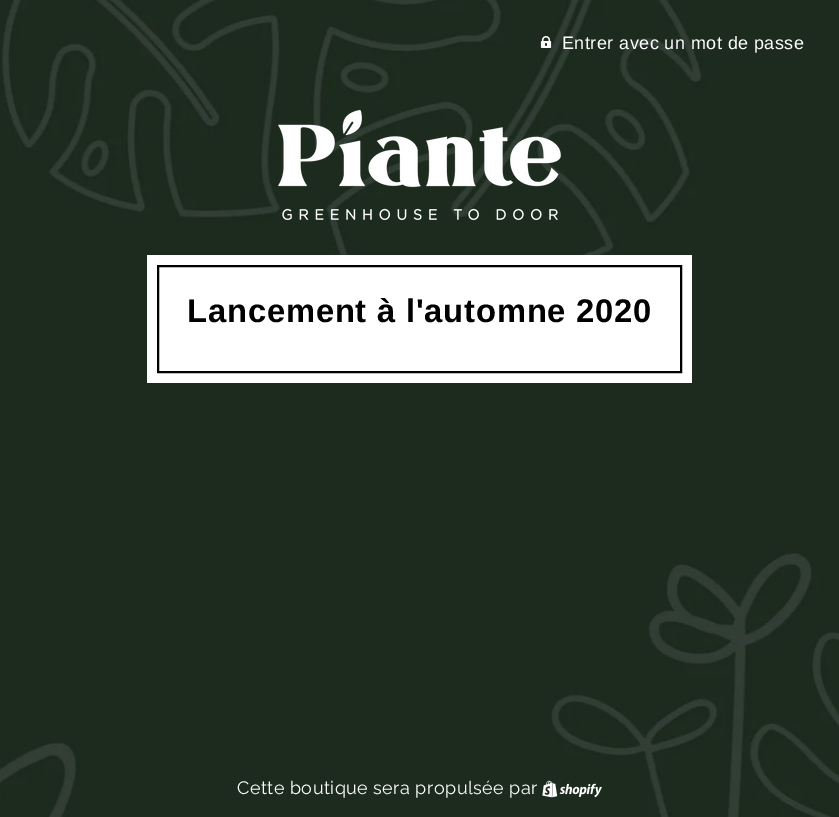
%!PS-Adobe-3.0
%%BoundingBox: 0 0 839 817
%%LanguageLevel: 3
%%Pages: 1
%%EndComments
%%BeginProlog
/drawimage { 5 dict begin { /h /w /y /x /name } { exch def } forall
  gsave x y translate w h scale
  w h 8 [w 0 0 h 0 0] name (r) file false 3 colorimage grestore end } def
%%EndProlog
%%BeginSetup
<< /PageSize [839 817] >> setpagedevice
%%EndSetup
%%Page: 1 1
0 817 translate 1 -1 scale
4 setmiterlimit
1 setgray
0 0 839 817 rectfill
(images/1.raw) 0 0 839 817 drawimage
(images/2.raw) 540 36 12 12 drawimage
(images/3.raw) 278 109 283 112 drawimage
147 255 545 128 rectfill
0 setgray
2 setlinewidth
158 266 523 106 rectstroke
(images/4.raw) 542 780 60 18 drawimage
/LiberationSans-Regular [18 0 0 -18 0 0] selectfont
1 setgray
562 49 moveto 0.45 0 (Entrer avec un mot de passe) ashow
/LiberationSans-Bold [32.75 0 0 -32.75 0 0] selectfont
0 setgray
187 322 moveto 0.8 0 (Lancement à l'automne 2020) ashow
/Raleway-Regular [18 0 0 -18 0 0] selectfont
1 setgray
237 794 moveto 0.45 0 (Cette boutique sera propulsée par) ashow
showpage
%%EOF
